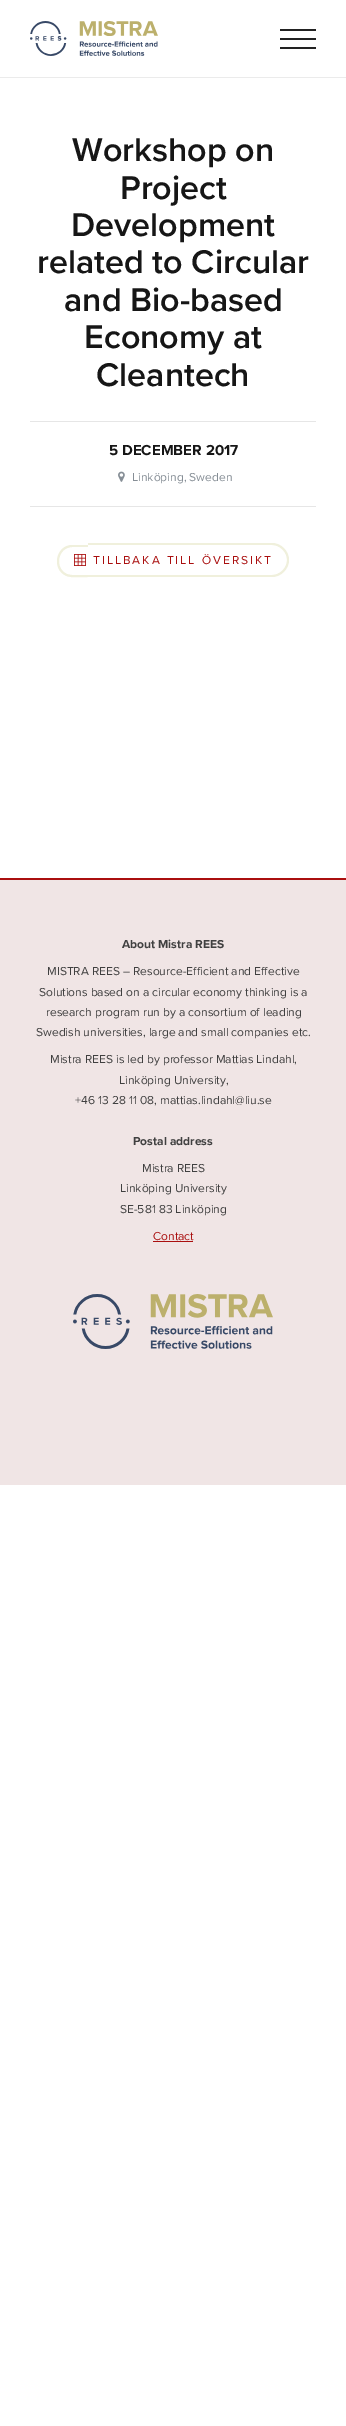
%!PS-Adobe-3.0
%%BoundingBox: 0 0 346 2426
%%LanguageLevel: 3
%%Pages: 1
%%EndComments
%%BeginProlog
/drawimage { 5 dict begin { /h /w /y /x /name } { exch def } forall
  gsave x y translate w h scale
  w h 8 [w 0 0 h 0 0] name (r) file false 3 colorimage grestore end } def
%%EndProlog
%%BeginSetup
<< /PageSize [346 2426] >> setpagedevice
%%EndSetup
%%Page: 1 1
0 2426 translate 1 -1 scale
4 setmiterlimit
1 setgray
0 0 346 2426 rectfill
0.922 setgray
0 77 346 1 rectfill
(images/1.raw) 30 21 128 35 drawimage
0.133 setgray
280 38 36 2 rectfill
280 29 36 2 rectfill
280 47 36 2 rectfill
0.902 setgray
30 421 286 1 rectfill
(images/2.raw) 118 471 7 11 drawimage
30 506 286 1 rectfill
0.941 0.941 0.863 setrgbcolor
newpath 72.5 545 moveto 88 545 lineto 88 577 lineto 82.5 577 71.5 578 66.5 576 curveto 51 569.5 55.5 545 72.5 545 curveto closepath 72.5 547 moveto 88 547 lineto 88 575 lineto 82.5 575 72 576 67 574 curveto 54 568.5 57.5 547 72.5 547 curveto closepath eofill
newpath 88 543 moveto 272 543 lineto 281 543 289 551 289 560 curveto 289 569 281 577 272 577 curveto 88 577 lineto closepath 88 545 moveto 272 545 lineto 280 545 287 552 287 560 curveto 287 568 280 575 272 575 curveto 88 575 lineto closepath eofill
(images/3.raw) 74 554 12 12 drawimage
0.941 0.898 0.898 setrgbcolor
0 880 346 605 rectfill
0.667 0.059 0.059 setrgbcolor
0 878 346 2 rectfill
153 1241 40 1 rectfill
(images/4.raw) 73 1294 200 55 drawimage
/ProximaNova-SemiBold [34 0 0 -34 0 0] selectfont
0.086 setgray
72 161 moveto (Workshop on) show
120 199 moveto (Project) show
71 236 moveto (Development) show
37 273 moveto (related to Circular) show
64 311 moveto (and Bio-based) show
84 348 moveto (Economy at) show
96 386 moveto (Cleantech) show
/ProximaNova-Bold [15 0 0 -15 0 0] selectfont
109 455 moveto (5 DECEMBER 2017) show
/ProximaNova-Regular [12 0 0 -12 0 0] selectfont
0.525 0.557 0.588 setrgbcolor
132 481 moveto (Linköping, Sweden) show
0.667 0.059 0.059 setrgbcolor
93 564 moveto 2 0 (TILLBAKA TILL ÖVERSIKT) ashow
/ProximaNova-Bold [12 0 0 -12 0 0] selectfont
0.251 setgray
122 948 moveto (About Mistra REES) show
/ProximaNova-Regular [12 0 0 -12 0 0] selectfont
47 975 moveto (MISTRA REES – Resource-Efficient and Effective) show
39 996 moveto (Solutions based on a circular economy thinking is a) show
46 1016 moveto (research program run by a consortium of leading) show
36 1036 moveto (Swedish universities, large and small companies etc.) show
50 1063 moveto (Mistra REES is led by professor Mattias Lindahl,) show
119 1084 moveto (Linköping University,) show
75 1104 moveto (+46 13 28 11 08, mattias.lindahl@liu.se) show
/ProximaNova-Bold [12 0 0 -12 0 0] selectfont
133 1145 moveto (Postal address) show
/ProximaNova-Regular [12 0 0 -12 0 0] selectfont
142 1172 moveto (Mistra REES) show
120 1192 moveto (Linköping University) show
120 1213 moveto (SE-581 83 Linköping) show
0.667 0.059 0.059 setrgbcolor
153 1240 moveto (Contact) show
showpage
%%EOF
